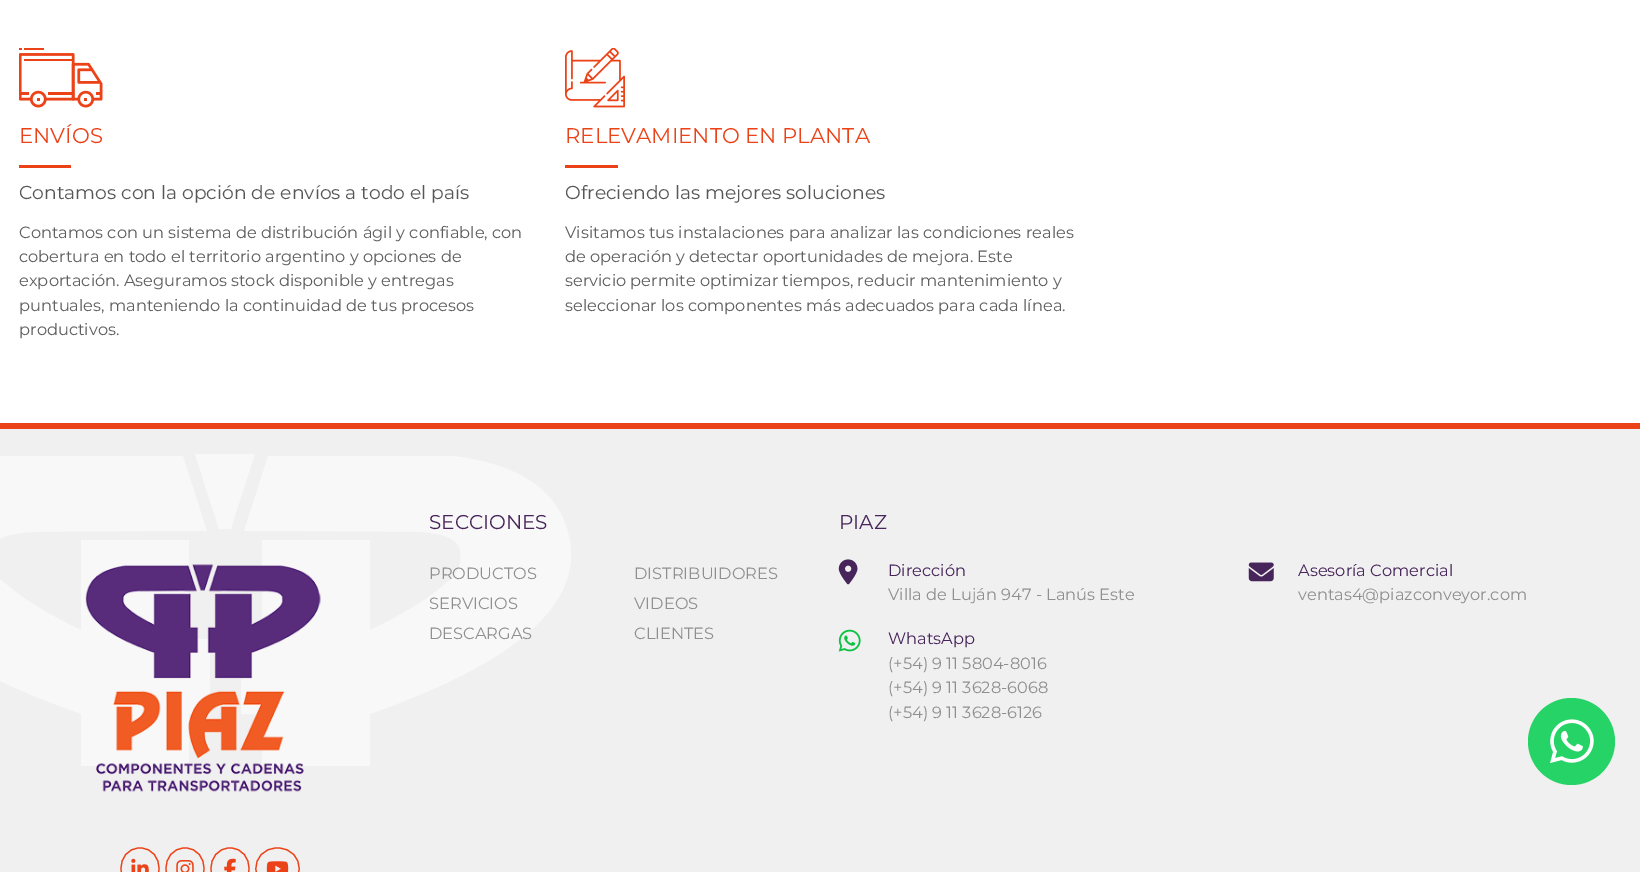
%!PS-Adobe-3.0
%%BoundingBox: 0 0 1640 872
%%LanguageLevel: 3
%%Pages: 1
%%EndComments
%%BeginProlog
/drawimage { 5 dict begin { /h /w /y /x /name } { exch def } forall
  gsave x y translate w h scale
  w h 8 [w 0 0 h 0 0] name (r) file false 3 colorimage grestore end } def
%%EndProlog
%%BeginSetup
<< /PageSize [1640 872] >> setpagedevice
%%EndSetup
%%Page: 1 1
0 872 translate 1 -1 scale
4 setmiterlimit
1 setgray
0 0 1640 872 rectfill
(images/1.raw) 19 48 84 60 drawimage
0.925 0.259 0.09 setrgbcolor
19 165 52 3 rectfill
(images/2.raw) 565 48 60 60 drawimage
565 165 53 3 rectfill
0.941 setgray
0 429 1640 443 rectfill
(images/3.raw) 0 454 571 312 drawimage
0.925 0.259 0.09 setrgbcolor
0 423 1640 6 rectfill
(images/4.raw) 85 564 236 228 drawimage
1.2 setlinewidth
newpath 140 848 moveto 165.5 848 165.5 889.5 140 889.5 curveto 114.5 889.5 114.5 848 140 848 curveto closepath stroke
(images/5.raw) 131 858 18 14 drawimage
newpath 185 848 moveto 210.5 848 210.5 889.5 185 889.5 curveto 159.5 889.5 159.5 848 185 848 curveto closepath stroke
(images/6.raw) 176 860 18 12 drawimage
newpath 230 848 moveto 255.5 848 255.5 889.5 230 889.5 curveto 204.5 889.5 204.5 848 230 848 curveto closepath stroke
(images/7.raw) 224 858 12 14 drawimage
newpath 277.5 848 moveto 306.5 848 306.5 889.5 277.5 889.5 curveto 248.5 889.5 248.5 848 277.5 848 curveto closepath stroke
(images/8.raw) 266 861 23 11 drawimage
(images/9.raw) 838 559 20 26 drawimage
(images/10.raw) 838 629 23 23 drawimage
(images/11.raw) 1248 562 26 20 drawimage
0.145 0.827 0.4 setrgbcolor
newpath 1571.5 741.5 43.5 0 360 arc closepath fill
(images/12.raw) 1550 719 44 45 drawimage
/Montserrat-Regular [21.25 0 0 -21.25 0 0] selectfont
0.925 0.259 0.09 setrgbcolor
19 143 moveto (ENVÍOS) show
/Montserrat-Regular [18.75 0 0 -18.75 0 0] selectfont
0.341 setgray
19 199 moveto (Contamos con la opción de envíos a todo el país) show
/Montserrat-Regular [16.25 0 0 -16.25 0 0] selectfont
0.369 setgray
19 238 moveto (Contamos con un sistema de distribución ágil y confiable, con) show
19 262 moveto (cobertura en todo el territorio argentino y opciones de) show
19 286 moveto (exportación. Aseguramos stock disponible y entregas) show
19 311 moveto (puntuales, manteniendo la continuidad de tus procesos) show
19 335 moveto (productivos.) show
/Montserrat-Regular [21.25 0 0 -21.25 0 0] selectfont
0.925 0.259 0.09 setrgbcolor
565 143 moveto (RELEVAMIENTO EN PLANTA) show
/Montserrat-Regular [18.75 0 0 -18.75 0 0] selectfont
0.341 setgray
565 199 moveto (Ofreciendo las mejores soluciones) show
/Montserrat-Regular [16.25 0 0 -16.25 0 0] selectfont
0.369 setgray
565 238 moveto (Visitamos tus instalaciones para analizar las condiciones reales) show
565 262 moveto (de operación y detectar oportunidades de mejora. Este) show
565 286 moveto (servicio permite optimizar tiempos, reducir mantenimiento y) show
565 311 moveto (seleccionar los componentes más adecuados para cada línea.) show
/Montserrat-Regular [20 0 0 -20 0 0] selectfont
0.278 0.141 0.353 setrgbcolor
429 529 moveto (SECCIONES) show
/Montserrat-Regular [16.25 0 0 -16.25 0 0] selectfont
0.561 setgray
429 579 moveto (PRODUCTOS) show
429 609 moveto (SERVICIOS) show
429 639 moveto (DESCARGAS) show
634 579 moveto (DISTRIBUIDORES) show
634 609 moveto (VIDEOS) show
634 639 moveto (CLIENTES) show
/Montserrat-Regular [20 0 0 -20 0 0] selectfont
0.278 0.141 0.353 setrgbcolor
839 529 moveto (PIAZ) show
/Montserrat-Regular [16.25 0 0 -16.25 0 0] selectfont
888 576 moveto (Dirección) show
0.561 setgray
888 600 moveto (Villa de Luján 947 - Lanús Este) show
0.278 0.141 0.353 setrgbcolor
888 644 moveto (WhatsApp) show
0.561 setgray
888 669 moveto (\(+54\) 9 11 5804-8016) show
888 693 moveto (\(+54\) 9 11 3628-6068) show
888 718 moveto (\(+54\) 9 11 3628-6126) show
0.278 0.141 0.353 setrgbcolor
1298 576 moveto (Asesoría Comercial) show
0.561 setgray
1298 600 moveto (ventas4@piazconveyor.com) show
showpage
%%EOF
